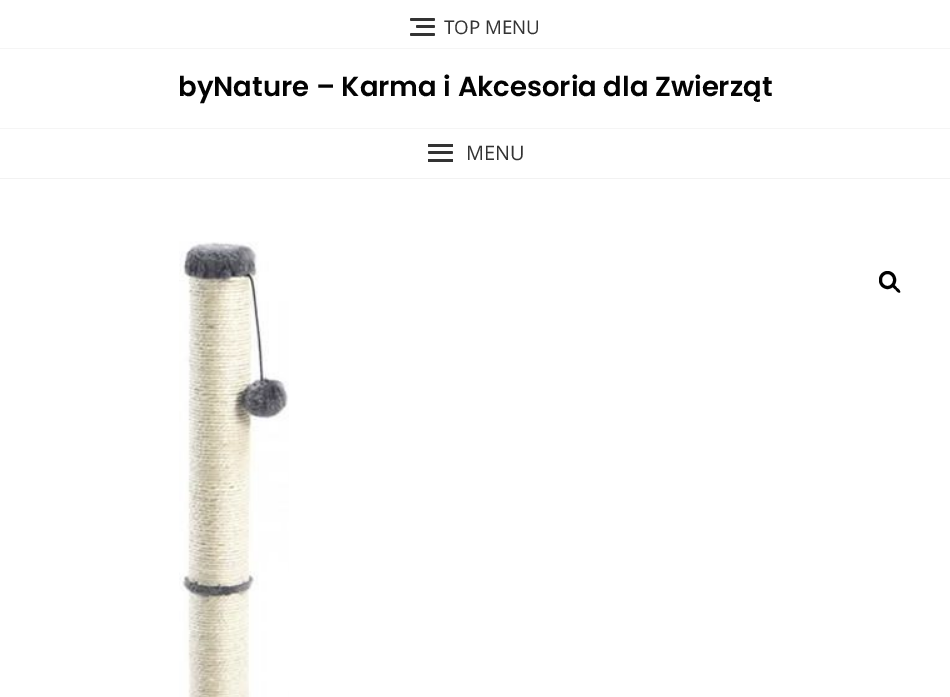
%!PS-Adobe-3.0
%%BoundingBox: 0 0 950 697
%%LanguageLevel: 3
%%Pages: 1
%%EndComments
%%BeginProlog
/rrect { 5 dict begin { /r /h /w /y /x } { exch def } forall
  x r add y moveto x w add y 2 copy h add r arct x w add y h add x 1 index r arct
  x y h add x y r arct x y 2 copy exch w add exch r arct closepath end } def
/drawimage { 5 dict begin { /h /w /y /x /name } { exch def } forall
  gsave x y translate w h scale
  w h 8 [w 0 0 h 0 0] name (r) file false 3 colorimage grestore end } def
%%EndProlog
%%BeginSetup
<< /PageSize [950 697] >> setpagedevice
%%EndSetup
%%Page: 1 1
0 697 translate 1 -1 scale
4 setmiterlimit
1 setgray
0 0 950 697 rectfill
0.961 setgray
0 48 950 1 rectfill
0.2 setgray
416 25 19 3 1.5 rrect fill
410 18 25 3 1.5 rrect fill
410 33 25 3 1.5 rrect fill
0.961 setgray
0 128 950 1 rectfill
0.2 setgray
428 151 25 3 1.5 rrect fill
428 144 25 3 rectfill
428 159 25 3 rectfill
0.949 setgray
0 178 950 1 rectfill
(images/1.raw) 179 241 110 456 drawimage
0 setgray
3 setlinewidth
880.5 272.5 14 15 7 rrect stroke
newpath 892.5 285 moveto 894 284 896.5 287 897 288 curveto 898 288.5 901 291 900 292.5 curveto 898.5 293.5 896 290.5 895.5 289.5 curveto 894.5 289 891.5 286.5 892.5 285 curveto closepath fill
/OpenSans-Regular [18.75 0 0 -18.75 0 0] selectfont
0.2 setgray
444 34 moveto (TOP MENU) show
/Poppins-SemiBold [27.5 0 0 -27.5 0 0] selectfont
0.012 setgray
178 96 moveto (byNature – Karma i Akcesoria dla Zwierząt) show
/OpenSans-Regular [20 0 0 -20 0 0] selectfont
0.2 setgray
466 160 moveto (MENU) show
showpage
%%EOF
